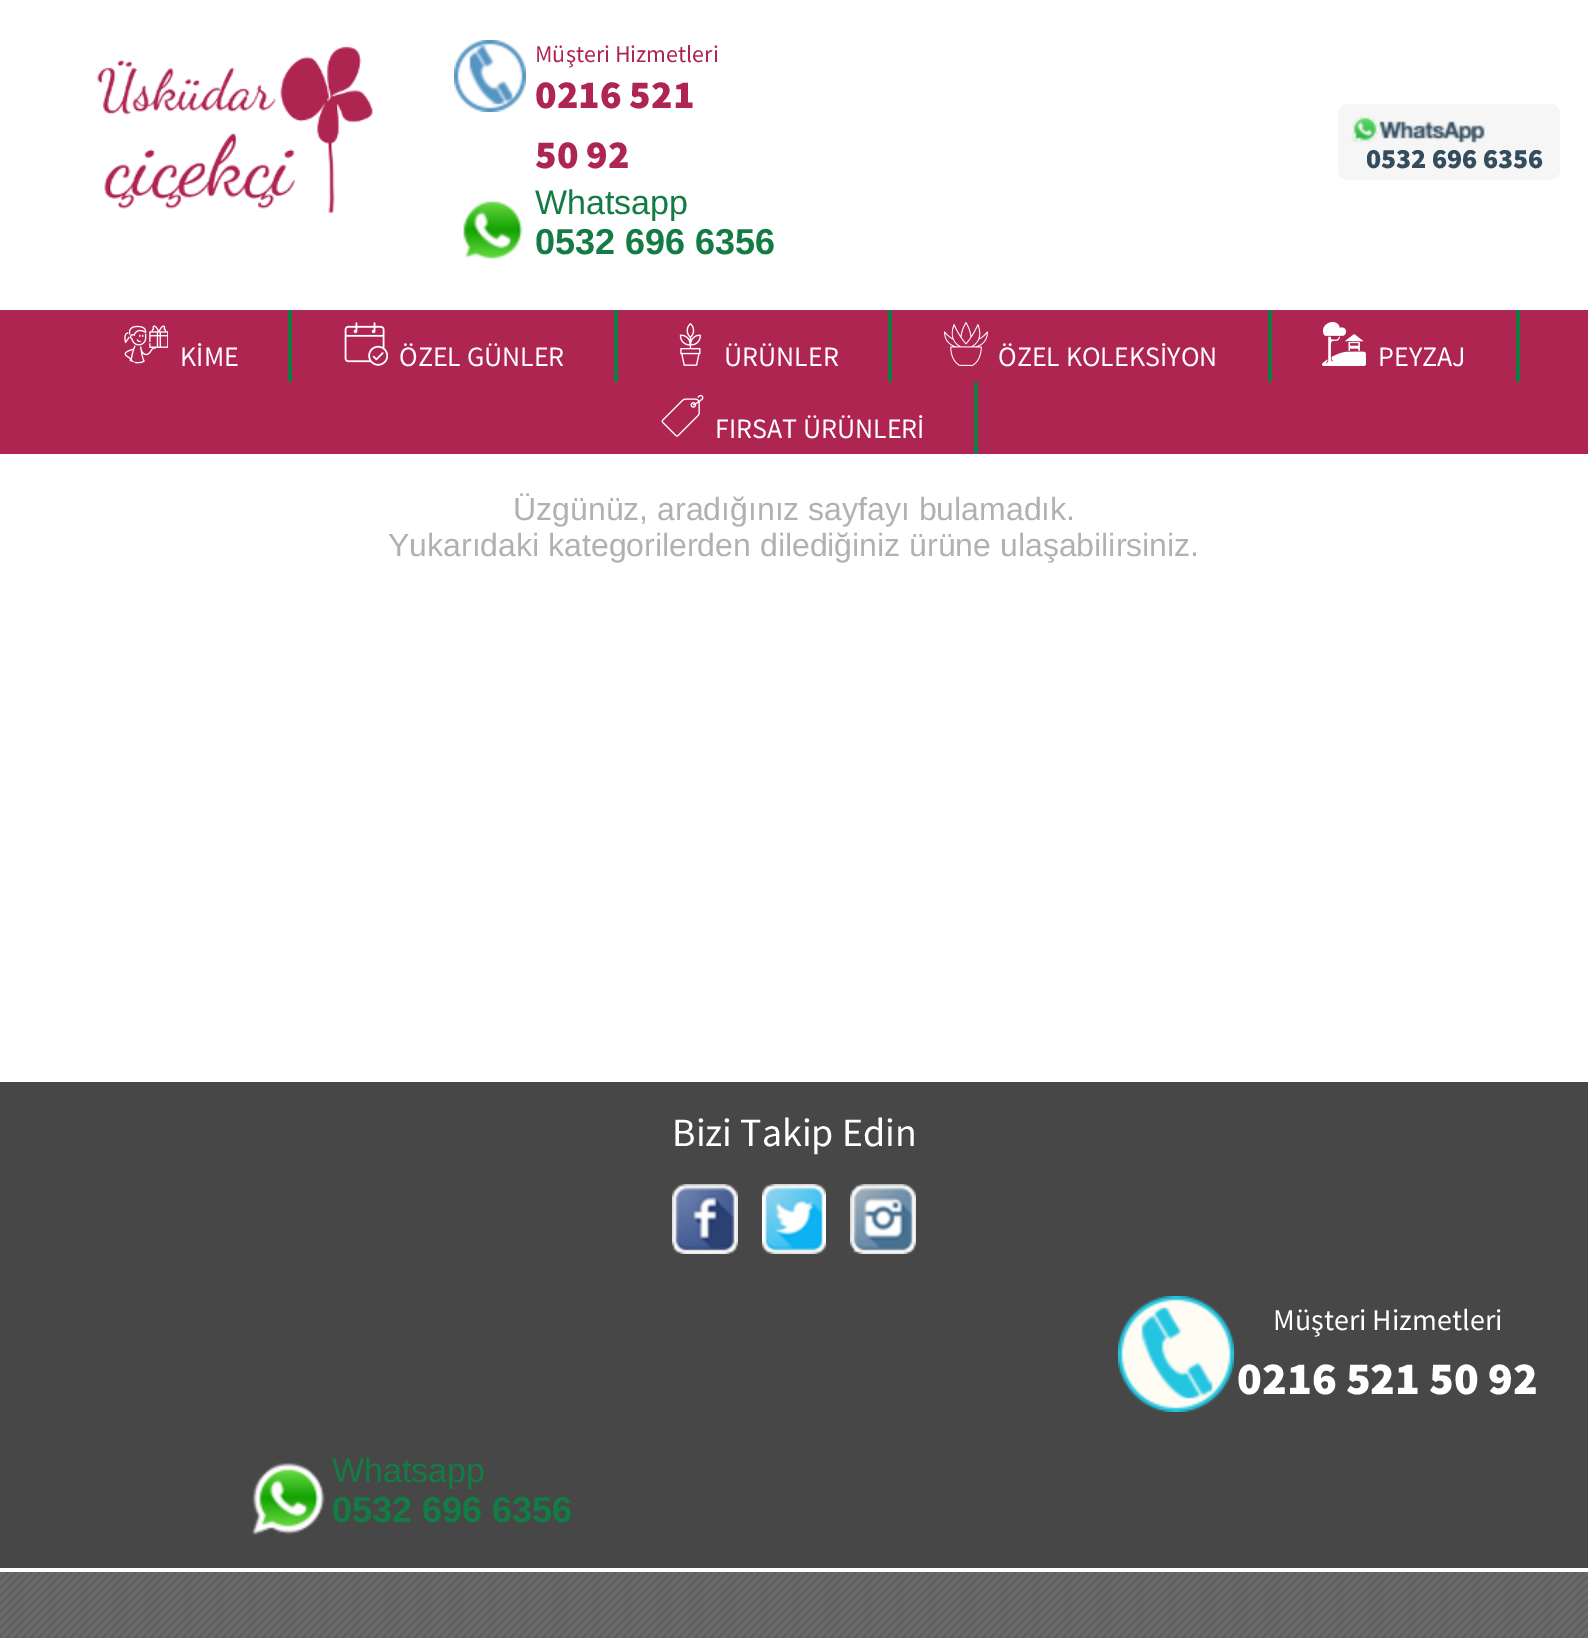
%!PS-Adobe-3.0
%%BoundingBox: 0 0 1588 1638
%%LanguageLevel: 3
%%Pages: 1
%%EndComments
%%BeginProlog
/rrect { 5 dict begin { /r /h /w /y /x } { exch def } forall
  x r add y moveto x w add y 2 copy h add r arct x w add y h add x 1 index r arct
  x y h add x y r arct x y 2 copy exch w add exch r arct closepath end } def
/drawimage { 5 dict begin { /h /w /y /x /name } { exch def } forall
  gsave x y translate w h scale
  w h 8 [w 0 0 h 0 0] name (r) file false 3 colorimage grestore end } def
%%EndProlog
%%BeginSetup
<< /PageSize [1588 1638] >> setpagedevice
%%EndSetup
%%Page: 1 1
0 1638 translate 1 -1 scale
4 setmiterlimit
1 setgray
0 0 1588 1638 rectfill
(images/1.raw) 97 46 276 167 drawimage
(images/2.raw) 454 40 72 72 drawimage
(images/3.raw) 463 196 64 64 drawimage
0.686 0.145 0.322 setrgbcolor
0 310 1588 144 rectfill
0.965 setgray
1338 104 222 76 10 rrect fill
(images/4.raw) 1351 116 134 27 drawimage
0.075 0.486 0.271 setrgbcolor
288 310 4 72 rectfill
(images/5.raw) 124 325 44 39 drawimage
614 310 4 72 rectfill
(images/6.raw) 344 322 44 44 drawimage
888 310 4 72 rectfill
(images/7.raw) 679 323 22 43 drawimage
1268 310 4 72 rectfill
(images/8.raw) 944 322 44 44 drawimage
1516 310 4 72 rectfill
(images/9.raw) 1322 322 44 44 drawimage
974 382 4 72 rectfill
(images/10.raw) 661 394 43 43 drawimage
0.278 setgray
0 1082 1588 486 rectfill
(images/11.raw) 672 1184 66 70 drawimage
(images/12.raw) 762 1184 64 70 drawimage
(images/13.raw) 850 1184 66 70 drawimage
(images/14.raw) 1118 1296 116 116 drawimage
(images/15.raw) 251 1462 74 73 drawimage
0.42 setgray
0 1572 1588 66 rectfill
(images/16.raw) 0 1572 1588 66 drawimage
/SourceSansPro-Regular [24 0 0 -24 0 0] selectfont
0.686 0.145 0.322 setrgbcolor
535 62 moveto (Müşteri Hizmetleri) show
/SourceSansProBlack-Black [40 0 0 -40 0 0] selectfont
535 108 moveto (0216 521) show
535 168 moveto (50 92) show
/LiberationSans-Regular [34 0 0 -34 0 0] selectfont
0.075 0.486 0.271 setrgbcolor
535 214 moveto (Whatsapp) show
/LiberationSans-Bold [36 0 0 -36 0 0] selectfont
535 254 moveto (0532 696 6356) show
/SourceSansProBlack-Black [28 0 0 -28 0 0] selectfont
0.2 0.302 0.369 setrgbcolor
1366 168 moveto (0532 696 6356) show
/SourceSansPro-Regular [28 0 0 -28 0 0] selectfont
1 setgray
180 366 moveto (KİME) show
399 366 moveto (ÖZEL GÜNLER) show
724 366 moveto (ÜRÜNLER) show
998 366 moveto (ÖZEL KOLEKSİYON) show
1378 366 moveto (PEYZAJ) show
715 438 moveto (FIRSAT ÜRÜNLERİ) show
/LiberationSans-Regular [32 0 0 -32 0 0] selectfont
0.694 setgray
513 520 moveto (Üzgünüz, aradığınız sayfayı bulamadık.) show
388 556 moveto (Yukarıdaki kategorilerden dilediğiniz ürüne ulaşabilirsiniz.) show
/SourceSansPro-Regular [40 0 0 -40 0 0] selectfont
1 setgray
672 1146 moveto (Bizi Takip Edin) show
/SourceSansPro-Regular [30 0 0 -30 0 0] selectfont
1273 1330 moveto (Müşteri Hizmetleri) show
/SourceSansProBlack-Black [46 0 0 -46 0 0] selectfont
1237 1394 moveto (0216 521 50 92) show
/LiberationSans-Regular [34 0 0 -34 0 0] selectfont
0.075 0.486 0.271 setrgbcolor
332 1482 moveto (Whatsapp) show
/LiberationSans-Bold [36 0 0 -36 0 0] selectfont
332 1522 moveto (0532 696 6356) show
showpage
%%EOF
